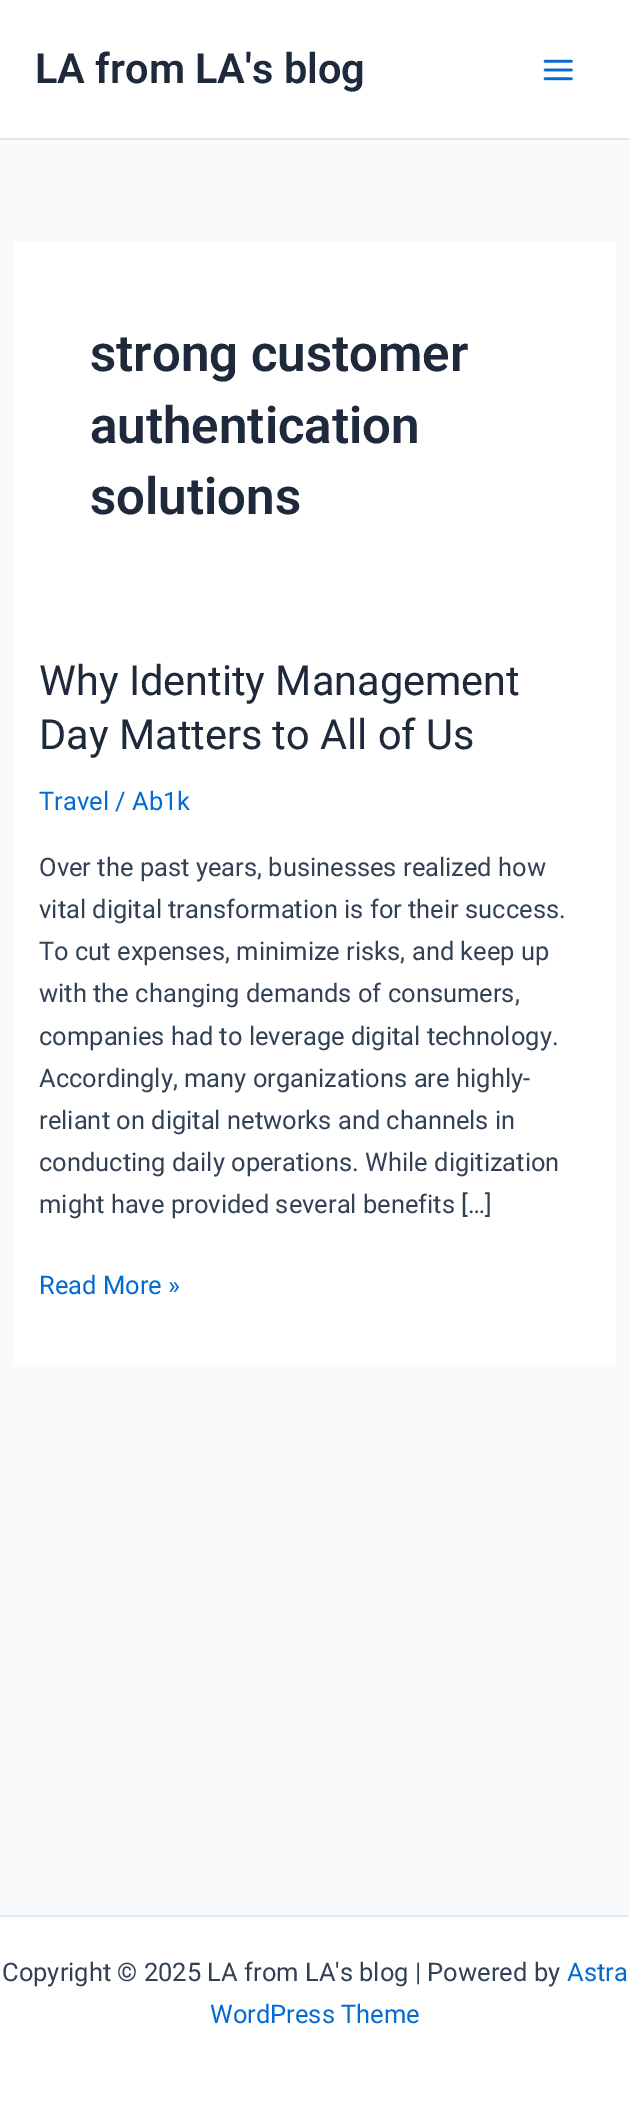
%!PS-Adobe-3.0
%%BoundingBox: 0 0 629 2125
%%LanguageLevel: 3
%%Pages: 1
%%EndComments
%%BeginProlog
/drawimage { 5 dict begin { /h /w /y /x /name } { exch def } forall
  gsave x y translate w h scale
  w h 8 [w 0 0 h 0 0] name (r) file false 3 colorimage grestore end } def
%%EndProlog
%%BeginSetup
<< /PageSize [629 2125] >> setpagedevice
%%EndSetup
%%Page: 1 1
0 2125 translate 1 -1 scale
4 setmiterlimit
0.976 0.98 0.984 setrgbcolor
0 0 629 2125 rectfill
1 setgray
0 0 629 138 rectfill
0.886 0.91 0.941 setrgbcolor
0 138 629 2 rectfill
(images/1.raw) 543 59 30 22 drawimage
1 setgray
14 242 602 1123 rectfill
0 1917 629 208 rectfill
0.886 0.91 0.941 setrgbcolor
0 1915 629 2 rectfill
/Roboto-SemiBold [41.5 0 0 -41.5 0 0] selectfont
0.118 0.161 0.231 setrgbcolor
35 83 moveto (LA from LA's blog) show
/Roboto-SemiBold [51 0 0 -51 0 0] selectfont
90 371 moveto (strong customer) show
90 443 moveto (authentication) show
90 514 moveto (solutions) show
/Roboto-Regular [41.5 0 0 -41.5 0 0] selectfont
39 695 moveto (Why Identity Management) show
39 749 moveto (Day Matters to All of Us) show
/Roboto-Regular [25.5 0 0 -25.5 0 0] selectfont
0.016 0.42 0.824 setrgbcolor
39 810 moveto (Travel / Ab1k) show
0.2 0.255 0.333 setrgbcolor
39 876 moveto (Over the past years, businesses realized how) show
39 918 moveto (vital digital transformation is for their success.) show
39 960 moveto (To cut expenses, minimize risks, and keep up) show
39 1002 moveto (with the changing demands of consumers,) show
39 1045 moveto (companies had to leverage digital technology.) show
39 1087 moveto (Accordingly, many organizations are highly-) show
39 1129 moveto (reliant on digital networks and channels in) show
39 1171 moveto (conducting daily operations. While digitization) show
39 1213 moveto (might have provided several benefits […]) show
0.016 0.42 0.824 setrgbcolor
39 1294 moveto (Read More ») show
0.2 0.255 0.333 setrgbcolor
2 1981 moveto (Copyright © 2025 LA from LA's blog | Powered by) show
0.016 0.42 0.824 setrgbcolor
567 1981 moveto (Astra) show
210 2023 moveto (WordPress Theme) show
showpage
%%EOF
